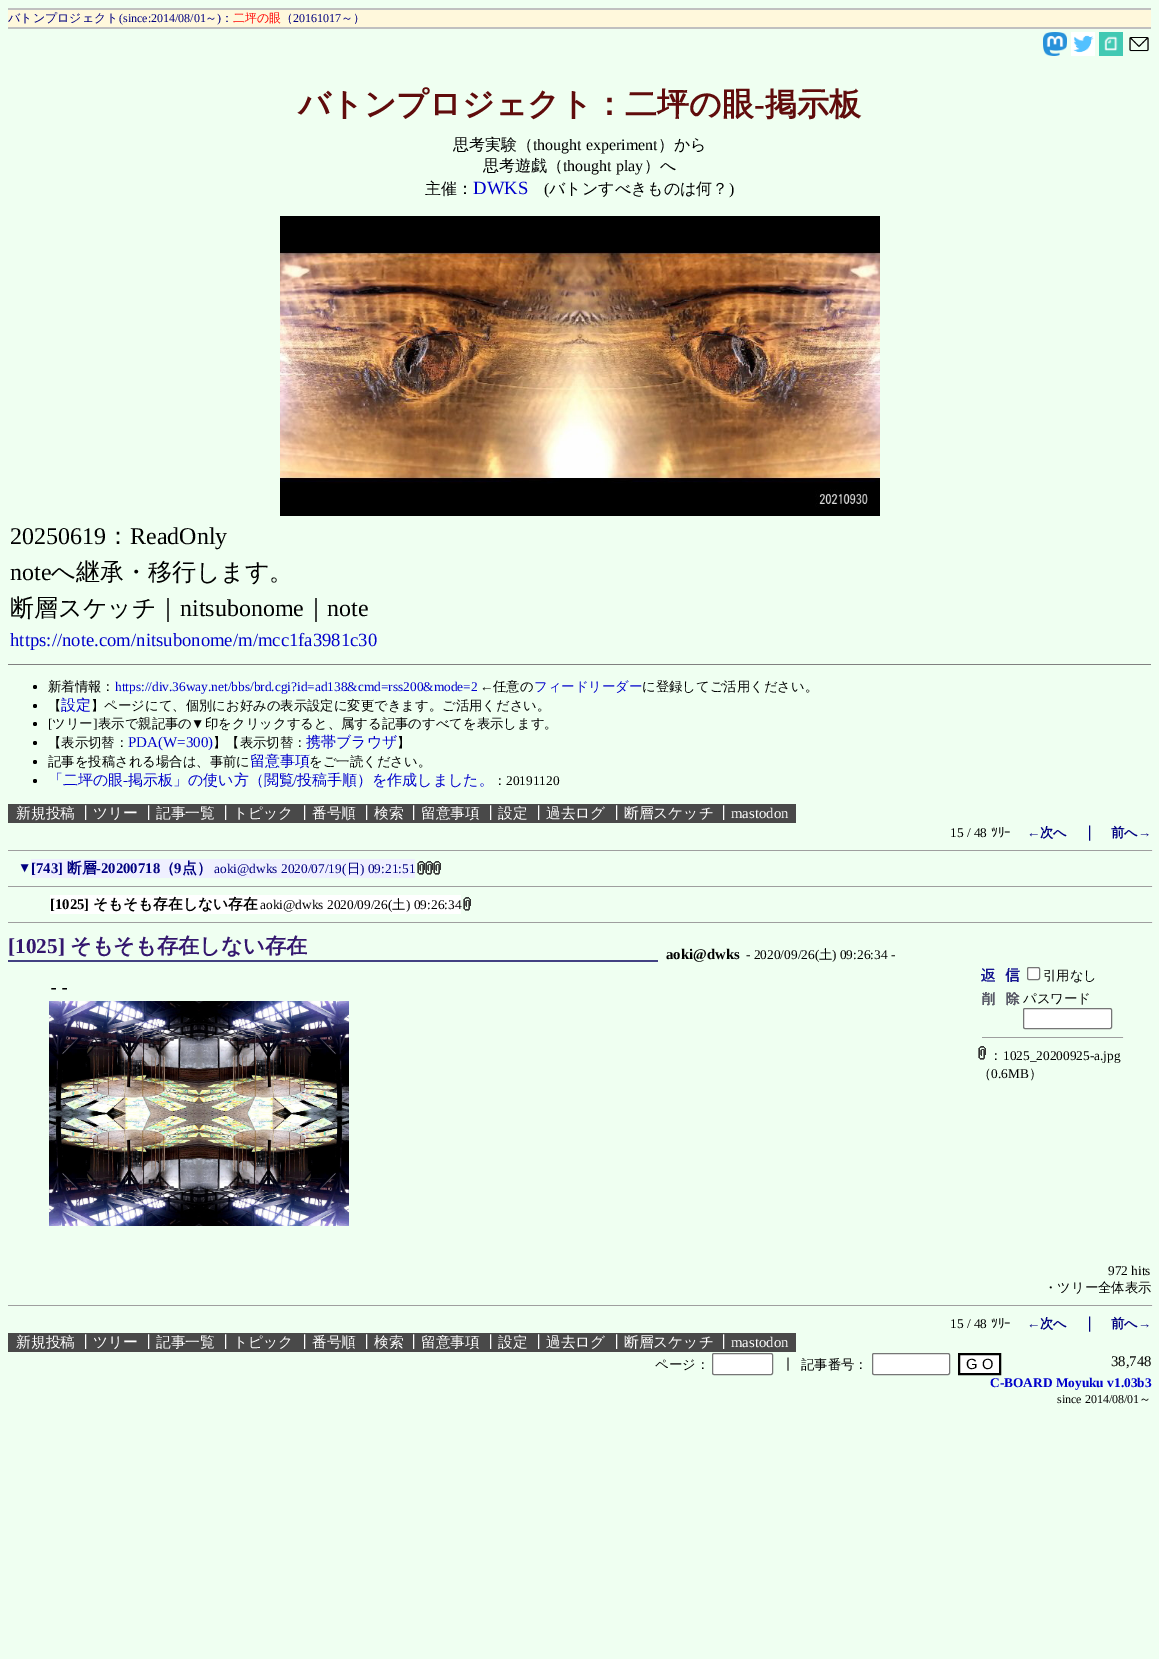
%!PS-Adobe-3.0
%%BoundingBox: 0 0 1159 1659
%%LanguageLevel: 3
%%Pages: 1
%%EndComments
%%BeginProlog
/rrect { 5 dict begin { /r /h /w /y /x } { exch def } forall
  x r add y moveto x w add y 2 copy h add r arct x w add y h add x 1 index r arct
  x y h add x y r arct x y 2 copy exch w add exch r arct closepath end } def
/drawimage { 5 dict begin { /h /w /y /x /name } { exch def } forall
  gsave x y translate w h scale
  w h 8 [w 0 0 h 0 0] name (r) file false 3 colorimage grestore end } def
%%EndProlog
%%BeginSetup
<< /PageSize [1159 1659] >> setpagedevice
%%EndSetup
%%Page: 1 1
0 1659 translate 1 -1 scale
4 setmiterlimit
0.937 1 0.945 setrgbcolor
0 0 1159 1659 rectfill
1 0.973 0.863 setrgbcolor
8 10 1143 17 rectfill
0.753 setgray
8 8 1143 2 rectfill
8 27 1143 2 rectfill
(images/1.raw) 1043 32 24 24 drawimage
(images/2.raw) 1071 32 24 24 drawimage
(images/3.raw) 1099 32 24 24 drawimage
(images/4.raw) 1129 37 20 15 drawimage
(images/5.raw) 280 216 600 300 drawimage
0.502 setgray
8 664 1143 1 rectfill
0 setgray
newpath 35 687 2 0 360 arc closepath fill
newpath 35 706 2 0 360 arc closepath fill
newpath 35 724 2 0 360 arc closepath fill
newpath 35 743 2 0 360 arc closepath fill
newpath 35 762 2 0 360 arc closepath fill
newpath 35 781 2 0 360 arc closepath fill
0.286 setgray
8 804 788 19 rectfill
0.624 setgray
8 850 1145 1 rectfill
0.933 setgray
1152 850 1 1 rectfill
0.937 0.941 1 setrgbcolor
31 859 384 19 rectfill
(images/6.raw) 417 861 8 14 drawimage
(images/6.raw) 425 861 8 14 drawimage
(images/6.raw) 433 861 8 14 drawimage
0.624 setgray
8 886 1145 1 rectfill
0.933 setgray
1152 886 1 1 rectfill
1 setgray
50 895 411 19 rectfill
(images/6.raw) 463 897 8 14 drawimage
0.624 setgray
8 922 1145 1 rectfill
0.933 setgray
1152 922 1 1 rectfill
0.259 0.259 0.51 setrgbcolor
8 960 650 2 rectfill
(images/7.raw) 49 1001 300 225 drawimage
(images/8.raw) 981 968 39 14 drawimage
1 setgray
1027.5 967.5 12 12 1.5 rrect gsave fill grestore
0.463 setgray
stroke
(images/9.raw) 982 992 38 14 drawimage
1 setgray
1023.5 1008.5 88 20 1.5 rrect gsave fill grestore
0.463 setgray
stroke
0.624 setgray
982 1037 142 1 rectfill
0.933 setgray
1123 1037 1 1 rectfill
(images/6.raw) 978 1046 8 14 drawimage
0.624 setgray
8 1305 1145 1 rectfill
0.933 setgray
1152 1305 1 1 rectfill
0.286 setgray
8 1333 788 19 rectfill
1 setgray
712.5 1353.5 60 21 1.5 rrect gsave fill grestore
0.463 setgray
stroke
1 setgray
872.5 1353.5 77 21 1.5 rrect gsave fill grestore
0.463 setgray
stroke
1 setgray
newpath 959 1354 moveto 1000 1354 lineto 1000 1374 lineto 959 1374 lineto closepath gsave fill grestore
0 setgray
2 setlinewidth
stroke
/WenQuanYiZenHei-Medium [12 0 0 -12 0 0] selectfont
0 0 0.502 setrgbcolor
8 22 moveto (バトンプロジェクト) show
/LiberationSerif-Regular [12 0 0 -12 0 0] selectfont
119 22 moveto (\(since:2014/08/01) show
/WenQuanYiZenHei-Medium [12 0 0 -12 0 0] selectfont
205 22 moveto (～) show
/LiberationSerif-Regular [12 0 0 -12 0 0] selectfont
217 22 moveto (\)) show
/WenQuanYiZenHei-Medium [12 0 0 -12 0 0] selectfont
221 22 moveto (：) show
1 0 0 setrgbcolor
233 22 moveto (二坪の眼) show
0 0 0.502 setrgbcolor
281 22 moveto (（) show
/LiberationSerif-Regular [12 0 0 -12 0 0] selectfont
293 22 moveto (20161017) show
/WenQuanYiZenHei-Medium [12 0 0 -12 0 0] selectfont
341 22 moveto (～）) show
/WenQuanYiZenHei-Bold [32 0 0 -32 0 0] selectfont
0.376 0.047 0.047 setrgbcolor
298 115 moveto (バトンプロジェクト：二坪の眼) show
/LiberationSerif-Bold [32 0 0 -32 0 0] selectfont
754 115 moveto (-) show
/WenQuanYiZenHei-Bold [32 0 0 -32 0 0] selectfont
765 115 moveto (掲示板) show
/WenQuanYiZenHei-Medium [16 0 0 -16 0 0] selectfont
0 setgray
453 150 moveto (思考実験（) show
/LiberationSerif-Regular [16 0 0 -16 0 0] selectfont
533 150 moveto (thought experiment) show
/WenQuanYiZenHei-Medium [16 0 0 -16 0 0] selectfont
658 150 moveto (）から) show
483 171 moveto (思考遊戯（) show
/LiberationSerif-Regular [16 0 0 -16 0 0] selectfont
563 171 moveto (thought play) show
/WenQuanYiZenHei-Medium [16 0 0 -16 0 0] selectfont
644 171 moveto (）へ) show
425 194 moveto (主催：) show
/LiberationSerif-Regular [18.7 0 0 -18.7 0 0] selectfont
0 0 0.8 setrgbcolor
473 194 moveto (DWKS) show
/LiberationSerif-Regular [16 0 0 -16 0 0] selectfont
0 setgray
544 194 moveto (\() show
/WenQuanYiZenHei-Medium [16 0 0 -16 0 0] selectfont
549 194 moveto (バトンすべきものは何？) show
/LiberationSerif-Regular [16 0 0 -16 0 0] selectfont
729 194 moveto (\)) show
/LiberationSerif-Regular [24 0 0 -24 0 0] selectfont
10 544 moveto (20250619) show
/WenQuanYiZenHei-Medium [24 0 0 -24 0 0] selectfont
106 544 moveto (：) show
/LiberationSerif-Regular [24 0 0 -24 0 0] selectfont
130 544 moveto (ReadOnly) show
10 580 moveto (note) show
/WenQuanYiZenHei-Medium [24 0 0 -24 0 0] selectfont
51 580 moveto (へ継承・移行します。) show
10 616 moveto (断層スケッチ｜) show
/LiberationSerif-Regular [24 0 0 -24 0 0] selectfont
180 616 moveto (nitsubonome) show
/WenQuanYiZenHei-Medium [24 0 0 -24 0 0] selectfont
304 616 moveto (｜) show
/LiberationSerif-Regular [24 0 0 -24 0 0] selectfont
327 616 moveto (note) show
/LiberationSerif-Regular [18.7 0 0 -18.7 0 0] selectfont
0 0 0.8 setrgbcolor
10 646 moveto (https://note.com/nitsubonome/m/mcc1fa3981c30) show
/WenQuanYiZenHei-Medium [13.35 0 0 -13.35 0 0] selectfont
0 setgray
48 691 moveto (新着情報：) show
/LiberationSerif-Regular [13.35 0 0 -13.35 0 0] selectfont
0 0 0.8 setrgbcolor
115 691 moveto (https://div.36way.net/bbs/brd.cgi?id=ad138&cmd=rss200&mode=2) show
0 setgray
480 691 moveto (←) show
/WenQuanYiZenHei-Medium [13.35 0 0 -13.35 0 0] selectfont
493 691 moveto (任意の) show
0 0 0.8 setrgbcolor
534 691 moveto (フィードリーダー) show
0 setgray
642 691 moveto (に登録してご活用ください。) show
48 710 moveto (【) show
/WenQuanYiZenHei-Medium [15 0 0 -15 0 0] selectfont
0 0 0.8 setrgbcolor
61 710 moveto (設定) show
/WenQuanYiZenHei-Medium [13.35 0 0 -13.35 0 0] selectfont
0 setgray
91 710 moveto (】ページにて、個別にお好みの表示設定に変更できます。ご活用ください。) show
/LiberationSerif-Regular [13.35 0 0 -13.35 0 0] selectfont
48 728 moveto ([) show
/WenQuanYiZenHei-Medium [13.35 0 0 -13.35 0 0] selectfont
52 728 moveto (ツリー) show
/LiberationSerif-Regular [13.35 0 0 -13.35 0 0] selectfont
93 728 moveto (]) show
/WenQuanYiZenHei-Medium [13.35 0 0 -13.35 0 0] selectfont
98 728 moveto (表示で親記事の) show
/LiberationSerif-Regular [13.35 0 0 -13.35 0 0] selectfont
191 728 moveto (▼) show
/WenQuanYiZenHei-Medium [13.35 0 0 -13.35 0 0] selectfont
205 728 moveto (印をクリックすると、属する記事のすべてを表示します。) show
48 747 moveto (【表示切替：) show
/LiberationSerif-Regular [15 0 0 -15 0 0] selectfont
0 0 0.8 setrgbcolor
128 747 moveto (PDA\(W=300\)) show
/WenQuanYiZenHei-Medium [13.35 0 0 -13.35 0 0] selectfont
0 setgray
213 747 moveto (】【表示切替：) show
/WenQuanYiZenHei-Medium [15 0 0 -15 0 0] selectfont
0 0 0.8 setrgbcolor
306 747 moveto (携帯ブラウザ) show
/WenQuanYiZenHei-Medium [13.35 0 0 -13.35 0 0] selectfont
0 setgray
397 747 moveto (】) show
48 766 moveto (記事を投稿される場合は、事前に) show
/WenQuanYiZenHei-Medium [15 0 0 -15 0 0] selectfont
0 0 0.8 setrgbcolor
250 766 moveto (留意事項) show
/WenQuanYiZenHei-Medium [13.35 0 0 -13.35 0 0] selectfont
0 setgray
309 766 moveto (をご一読ください。) show
/WenQuanYiZenHei-Medium [15 0 0 -15 0 0] selectfont
0 0 0.8 setrgbcolor
48 785 moveto (「二坪の眼) show
/LiberationSerif-Regular [15 0 0 -15 0 0] selectfont
123 785 moveto (-) show
/WenQuanYiZenHei-Medium [15 0 0 -15 0 0] selectfont
128 785 moveto (掲示板」の使い方（閲覧) show
/LiberationSerif-Regular [15 0 0 -15 0 0] selectfont
293 785 moveto (/) show
/WenQuanYiZenHei-Medium [15 0 0 -15 0 0] selectfont
297 785 moveto (投稿手順）を作成しました。) show
/WenQuanYiZenHei-Medium [13.35 0 0 -13.35 0 0] selectfont
0 setgray
493 785 moveto (：) show
/LiberationSerif-Regular [13.35 0 0 -13.35 0 0] selectfont
506 785 moveto (20191120) show
/WenQuanYiZenHei-Medium [14.75 0 0 -14.75 0 0] selectfont
1 setgray
16 818 moveto (新規投稿) show
78 818 moveto (┃ツリー) show
141 818 moveto (┃記事一覧) show
218 818 moveto (┃トピック) show
297 818 moveto (┃番号順) show
359 818 moveto (┃検索) show
406 818 moveto (┃留意事項) show
483 818 moveto (┃設定) show
531 818 moveto (┃過去ログ) show
609 818 moveto (┃断層スケッチ) show
716 818 moveto (┃) show
/LiberationSerif-Regular [14.75 0 0 -14.75 0 0] selectfont
731 818 moveto (mastodon) show
/LiberationSerif-Regular [13.35 0 0 -13.35 0 0] selectfont
0 setgray
950 837 moveto (15 / 48) show
/IPAPGothic-Regular [13.35 0 0 -13.35 0 0] selectfont
991 837 moveto (ﾂﾘｰ) show
/LiberationSerif-Bold [13.35 0 0 -13.35 0 0] selectfont
0 0 0.502 setrgbcolor
1027 837 moveto (←) show
/WenQuanYiZenHei-Bold [13.35 0 0 -13.35 0 0] selectfont
1040 837 moveto (次へ) show
/WenQuanYiZenHei-Bold [14.75 0 0 -14.75 0 0] selectfont
1082 837 moveto (｜) show
/WenQuanYiZenHei-Bold [13.35 0 0 -13.35 0 0] selectfont
1111 837 moveto (前へ) show
/LiberationSerif-Bold [13.35 0 0 -13.35 0 0] selectfont
1138 837 moveto (→) show
/LiberationSerif-Regular [13.35 0 0 -13.35 0 0] selectfont
18 872 moveto (▼) show
/LiberationSerif-Bold [14.75 0 0 -14.75 0 0] selectfont
31 873 moveto ([743]) show
/WenQuanYiZenHei-Bold [14.75 0 0 -14.75 0 0] selectfont
67 873 moveto (断層) show
/LiberationSerif-Bold [14.75 0 0 -14.75 0 0] selectfont
96 873 moveto (-20200718) show
/WenQuanYiZenHei-Bold [14.75 0 0 -14.75 0 0] selectfont
160 873 moveto (（) show
/LiberationSerif-Bold [14.75 0 0 -14.75 0 0] selectfont
174 873 moveto (9) show
/WenQuanYiZenHei-Bold [14.75 0 0 -14.75 0 0] selectfont
182 873 moveto (点）) show
/LiberationSerif-Regular [13.35 0 0 -13.35 0 0] selectfont
214 873 moveto (aoki@dwks) show
281 873 moveto (2020/07/19\() show
/WenQuanYiZenHei-Medium [13.35 0 0 -13.35 0 0] selectfont
347 873 moveto (日) show
/LiberationSerif-Regular [13.35 0 0 -13.35 0 0] selectfont
360 873 moveto (\) 09:21:51) show
/LiberationSerif-Bold [14.75 0 0 -14.75 0 0] selectfont
0 setgray
50 909 moveto ([1025]) show
/WenQuanYiZenHei-Bold [14.75 0 0 -14.75 0 0] selectfont
93 909 moveto (そもそも存在しない存在) show
/LiberationSerif-Regular [13.35 0 0 -13.35 0 0] selectfont
260 909 moveto (aoki@dwks) show
327 909 moveto (2020/09/26\() show
/WenQuanYiZenHei-Medium [13.35 0 0 -13.35 0 0] selectfont
392 909 moveto (土) show
/LiberationSerif-Regular [13.35 0 0 -13.35 0 0] selectfont
406 909 moveto (\) 09:26:34) show
/LiberationSerif-Bold [21.25 0 0 -21.25 0 0] selectfont
0.204 0.09 0.431 setrgbcolor
8 953 moveto ([1025]) show
/WenQuanYiZenHei-Bold [21.25 0 0 -21.25 0 0] selectfont
70 953 moveto (そもそも存在しない存在) show
/LiberationSerif-Bold [14.75 0 0 -14.75 0 0] selectfont
0 setgray
666 959 moveto (aoki@dwks) show
/LiberationSerif-Regular [13.35 0 0 -13.35 0 0] selectfont
746 959 moveto (- 2020/09/26\() show
/WenQuanYiZenHei-Medium [13.35 0 0 -13.35 0 0] selectfont
819 959 moveto (土) show
/LiberationSerif-Regular [13.35 0 0 -13.35 0 0] selectfont
832 959 moveto (\) 09:26:34 -) show
/DejaVuSansMono-Regular [18.7 0 0 -18.7 0 0] selectfont
48 994 moveto (--) show
/WenQuanYiZenHei-Medium [13.35 0 0 -13.35 0 0] selectfont
1043 980 moveto (引用なし) show
1023 1003 moveto (パスワード) show
989 1060 moveto (：) show
/LiberationSerif-Regular [13.35 0 0 -13.35 0 0] selectfont
1003 1060 moveto (1025_20200925-a.jpg) show
/WenQuanYiZenHei-Medium [13.35 0 0 -13.35 0 0] selectfont
978 1078 moveto (（) show
/LiberationSerif-Regular [13.35 0 0 -13.35 0 0] selectfont
991 1078 moveto (0.6MB) show
/WenQuanYiZenHei-Medium [13.35 0 0 -13.35 0 0] selectfont
1029 1078 moveto (）) show
/LiberationSerif-Regular [13.35 0 0 -13.35 0 0] selectfont
1108 1275 moveto (972 hits) show
/WenQuanYiZenHei-Medium [13.35 0 0 -13.35 0 0] selectfont
1044 1292 moveto (・ツリー全体表示) show
/LiberationSerif-Regular [13.35 0 0 -13.35 0 0] selectfont
950 1328 moveto (15 / 48) show
/IPAPGothic-Regular [13.35 0 0 -13.35 0 0] selectfont
991 1328 moveto (ﾂﾘｰ) show
/LiberationSerif-Bold [13.35 0 0 -13.35 0 0] selectfont
0 0 0.502 setrgbcolor
1027 1328 moveto (←) show
/WenQuanYiZenHei-Bold [13.35 0 0 -13.35 0 0] selectfont
1040 1328 moveto (次へ) show
/WenQuanYiZenHei-Bold [14.75 0 0 -14.75 0 0] selectfont
1082 1328 moveto (｜) show
/WenQuanYiZenHei-Bold [13.35 0 0 -13.35 0 0] selectfont
1111 1328 moveto (前へ) show
/LiberationSerif-Bold [13.35 0 0 -13.35 0 0] selectfont
1138 1328 moveto (→) show
/WenQuanYiZenHei-Medium [14.75 0 0 -14.75 0 0] selectfont
1 setgray
16 1347 moveto (新規投稿) show
78 1347 moveto (┃ツリー) show
141 1347 moveto (┃記事一覧) show
218 1347 moveto (┃トピック) show
297 1347 moveto (┃番号順) show
359 1347 moveto (┃検索) show
406 1347 moveto (┃留意事項) show
483 1347 moveto (┃設定) show
531 1347 moveto (┃過去ログ) show
609 1347 moveto (┃断層スケッチ) show
716 1347 moveto (┃) show
/LiberationSerif-Regular [14.75 0 0 -14.75 0 0] selectfont
731 1347 moveto (mastodon) show
/WenQuanYiZenHei-Medium [13.35 0 0 -13.35 0 0] selectfont
0 setgray
655 1369 moveto (ページ：) show
781 1369 moveto (┃) show
801 1369 moveto (記事番号：) show
/LiberationSans-Regular [14.75 0 0 -14.75 0 0] selectfont
966 1369 moveto (G O) show
/LiberationSerif-Regular [14.75 0 0 -14.75 0 0] selectfont
1111 1366 moveto (38,748) show
/LiberationSerif-Bold [13.35 0 0 -13.35 0 0] selectfont
0 0 0.8 setrgbcolor
990 1387 moveto (C-BOARD Moyuku v1.03b3) show
/LiberationSerif-Regular [12 0 0 -12 0 0] selectfont
0 setgray
1057 1403 moveto (since 2014/08/01) show
/WenQuanYiZenHei-Medium [12 0 0 -12 0 0] selectfont
1139 1403 moveto (～) show
showpage
%%EOF
